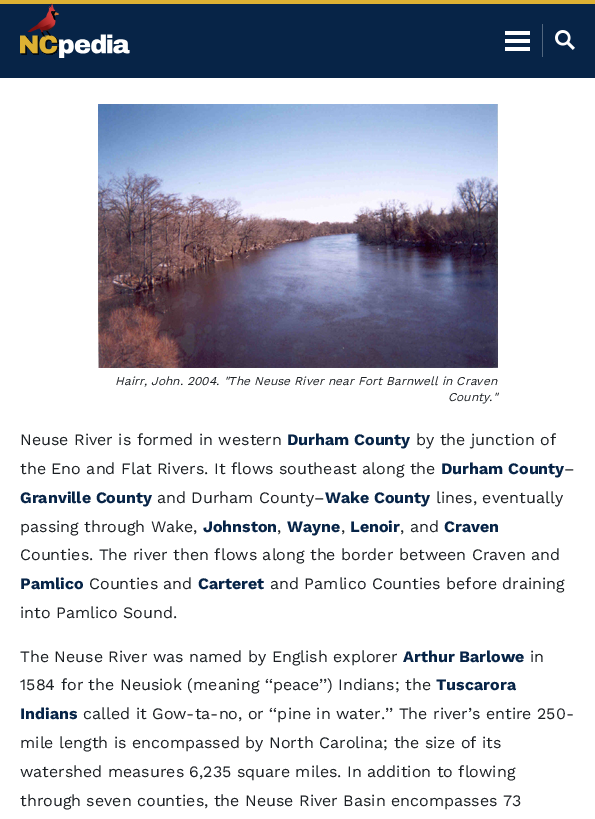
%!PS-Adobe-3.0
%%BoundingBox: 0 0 595 819
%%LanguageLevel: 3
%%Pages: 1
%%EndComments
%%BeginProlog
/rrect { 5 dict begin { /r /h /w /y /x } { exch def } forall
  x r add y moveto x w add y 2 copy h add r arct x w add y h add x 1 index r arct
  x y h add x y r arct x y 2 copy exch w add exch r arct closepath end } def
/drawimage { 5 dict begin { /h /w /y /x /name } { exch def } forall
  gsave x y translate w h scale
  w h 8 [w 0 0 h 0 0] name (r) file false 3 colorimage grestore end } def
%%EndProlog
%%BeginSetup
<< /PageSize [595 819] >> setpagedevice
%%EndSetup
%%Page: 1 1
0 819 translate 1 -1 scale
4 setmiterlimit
1 setgray
0 0 595 819 rectfill
0.027 0.141 0.278 setrgbcolor
0 4 595 74 rectfill
0.867 0.694 0.2 setrgbcolor
0 0 595 4 rectfill
(images/1.raw) 20 3 110 55 drawimage
1 setgray
505 31 25 4 0.5 rrect fill
505 39 25 4 0.5 rrect fill
505 47 25 4 0.5 rrect fill
0.318 0.4 0.494 setrgbcolor
542 24 1 33 rectfill
(images/2.raw) 555 30 20 20 drawimage
(images/3.raw) 98 104 400 264 drawimage
/WorkSans-Italic [12 0 0 -12 0 0] selectfont
0.11 0.125 0.141 setrgbcolor
115 385 moveto (Hairr, John. 2004. "The Neuse River near Fort Barnwell in Craven) show
448 401 moveto (County.") show
/WorkSans-Regular [16 0 0 -16 0 0] selectfont
20 445 moveto (Neuse River is formed in western) show
/WorkSans-Bold [16 0 0 -16 0 0] selectfont
0.027 0.141 0.278 setrgbcolor
287 445 moveto (Durham County) show
/WorkSans-Regular [16 0 0 -16 0 0] selectfont
0.11 0.125 0.141 setrgbcolor
416 445 moveto (by the junction of) show
20 474 moveto (the Eno and Flat Rivers. It flows southeast along the) show
/WorkSans-Bold [16 0 0 -16 0 0] selectfont
0.027 0.141 0.278 setrgbcolor
441 474 moveto (Durham County) show
/WorkSans-Regular [16 0 0 -16 0 0] selectfont
0.11 0.125 0.141 setrgbcolor
564 474 moveto (–) show
/WorkSans-Bold [16 0 0 -16 0 0] selectfont
0.027 0.141 0.278 setrgbcolor
20 503 moveto (Granville County) show
/WorkSans-Regular [16 0 0 -16 0 0] selectfont
0.11 0.125 0.141 setrgbcolor
157 503 moveto (and Durham County–) show
/WorkSans-Bold [16 0 0 -16 0 0] selectfont
0.027 0.141 0.278 setrgbcolor
325 503 moveto (Wake County) show
/WorkSans-Regular [16 0 0 -16 0 0] selectfont
0.11 0.125 0.141 setrgbcolor
436 503 moveto (lines, eventually) show
20 532 moveto (passing through Wake,) show
/WorkSans-Bold [16 0 0 -16 0 0] selectfont
0.027 0.141 0.278 setrgbcolor
203 532 moveto (Johnston) show
/WorkSans-Regular [16 0 0 -16 0 0] selectfont
0.11 0.125 0.141 setrgbcolor
277 532 moveto (,) show
/WorkSans-Bold [16 0 0 -16 0 0] selectfont
0.027 0.141 0.278 setrgbcolor
287 532 moveto (Wayne) show
/WorkSans-Regular [16 0 0 -16 0 0] selectfont
0.11 0.125 0.141 setrgbcolor
341 532 moveto (,) show
/WorkSans-Bold [16 0 0 -16 0 0] selectfont
0.027 0.141 0.278 setrgbcolor
350 532 moveto (Lenoir) show
/WorkSans-Regular [16 0 0 -16 0 0] selectfont
0.11 0.125 0.141 setrgbcolor
400 532 moveto (, and) show
/WorkSans-Bold [16 0 0 -16 0 0] selectfont
0.027 0.141 0.278 setrgbcolor
444 532 moveto (Craven) show
/WorkSans-Regular [16 0 0 -16 0 0] selectfont
0.11 0.125 0.141 setrgbcolor
20 560 moveto (Counties. The river then flows along the border between Craven and) show
/WorkSans-Bold [16 0 0 -16 0 0] selectfont
0.027 0.141 0.278 setrgbcolor
20 589 moveto (Pamlico) show
/WorkSans-Regular [16 0 0 -16 0 0] selectfont
0.11 0.125 0.141 setrgbcolor
89 589 moveto (Counties and) show
/WorkSans-Bold [16 0 0 -16 0 0] selectfont
0.027 0.141 0.278 setrgbcolor
198 589 moveto (Carteret) show
/WorkSans-Regular [16 0 0 -16 0 0] selectfont
0.11 0.125 0.141 setrgbcolor
270 589 moveto (and Pamlico Counties before draining) show
20 618 moveto (into Pamlico Sound.) show
20 662 moveto (The Neuse River was named by English explorer) show
/WorkSans-Bold [16 0 0 -16 0 0] selectfont
0.027 0.141 0.278 setrgbcolor
403 662 moveto (Arthur Barlowe) show
/WorkSans-Regular [16 0 0 -16 0 0] selectfont
0.11 0.125 0.141 setrgbcolor
530 662 moveto (in) show
20 690 moveto (1584 for the Neusiok \(meaning ‘‘peace’’\) Indians; the) show
/WorkSans-Bold [16 0 0 -16 0 0] selectfont
0.027 0.141 0.278 setrgbcolor
436 690 moveto (Tuscarora) show
20 719 moveto (Indians) show
/WorkSans-Regular [16 0 0 -16 0 0] selectfont
0.11 0.125 0.141 setrgbcolor
83 719 moveto (called it Gow-ta-no, or ‘‘pine in water.’’ The river’s entire 250-) show
20 748 moveto (mile length is encompassed by North Carolina; the size of its) show
20 777 moveto (watershed measures 6,235 square miles. In addition to flowing) show
20 806 moveto (through seven counties, the Neuse River Basin encompasses 73) show
showpage
%%EOF
